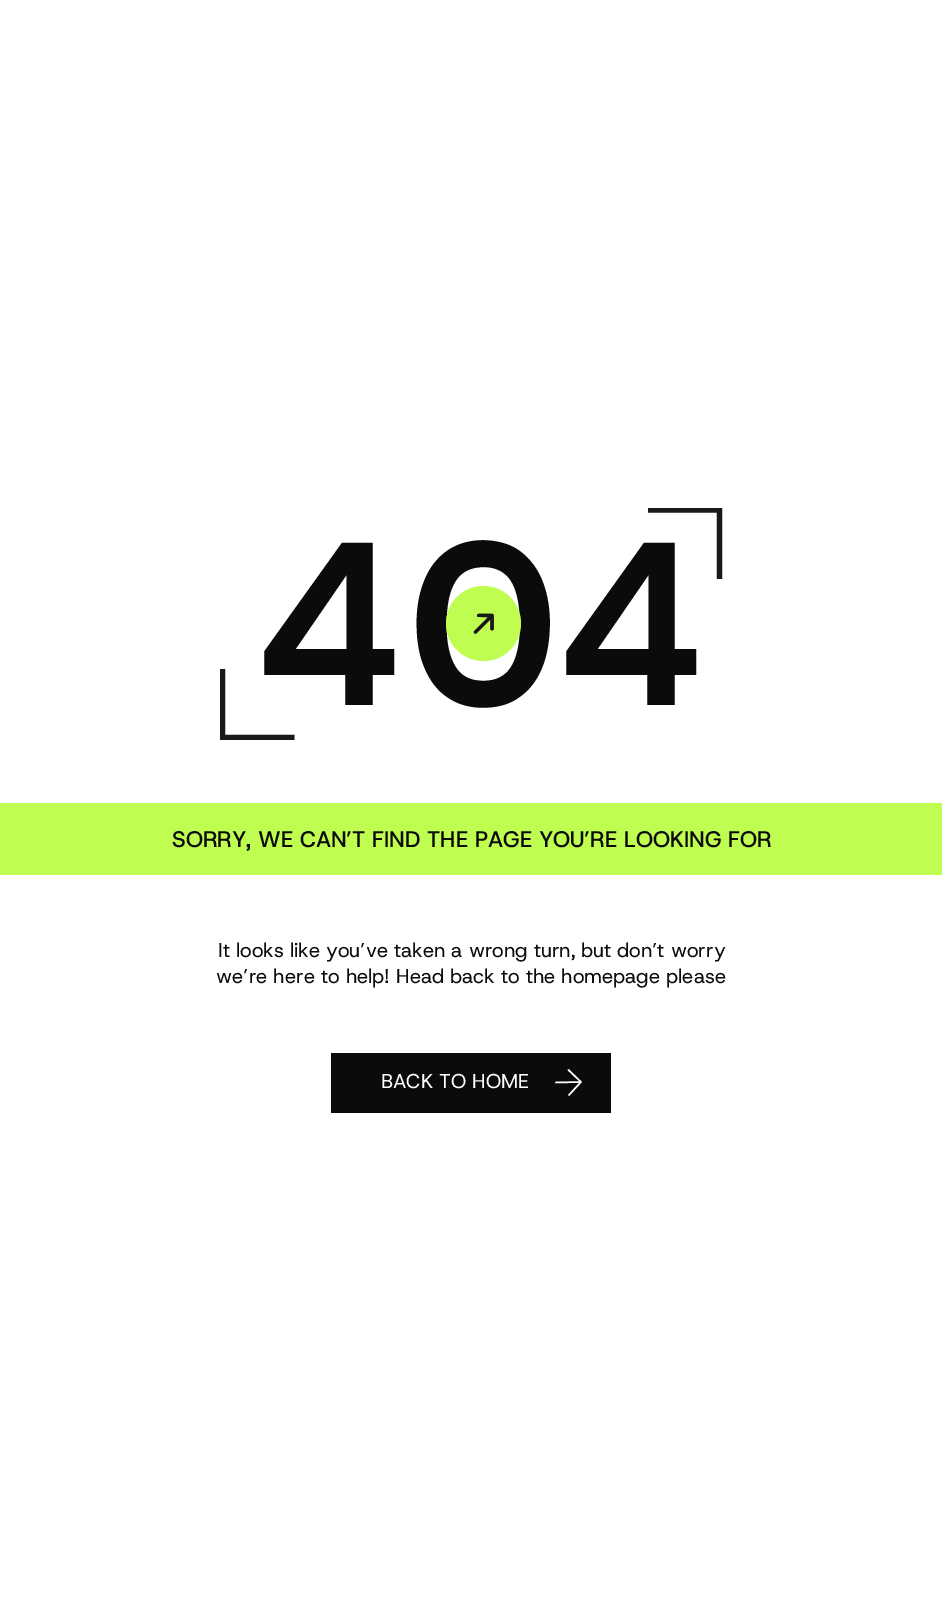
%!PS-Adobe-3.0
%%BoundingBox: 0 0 942 1619
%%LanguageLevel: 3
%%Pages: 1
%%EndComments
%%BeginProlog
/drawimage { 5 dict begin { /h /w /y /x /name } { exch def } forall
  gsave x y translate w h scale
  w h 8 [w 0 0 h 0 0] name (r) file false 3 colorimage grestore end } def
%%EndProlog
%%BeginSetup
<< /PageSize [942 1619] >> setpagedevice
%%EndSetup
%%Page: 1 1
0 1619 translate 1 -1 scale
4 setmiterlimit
1 setgray
0 0 942 1619 rectfill
0.749 0.992 0.314 setrgbcolor
0 803 942 72 rectfill
0.043 setgray
331 1053 280 60 rectfill
1 setgray
1.5 setlinewidth
1 setlinecap
1 setlinejoin
newpath 556 1082.5 moveto 581 1082 lineto 568.5 1070 moveto 581 1082 lineto 569 1095 lineto stroke
/HostGrotesk-Bold [232 0 0 -232 0 0] selectfont
0.043 setgray
257 705 moveto (404) show
gsave
648 508 75 72 rectclip
0.098 setgray
5.3 setlinewidth
0 setlinecap
0 setlinejoin
newpath 647.5 510 moveto 719.5 510 lineto 719.5 579 lineto stroke
grestore
0.749 0.992 0.314 setrgbcolor
newpath 483.5 623.5 37.5 0 360 arc closepath fill
(images/1.raw) 473 613 21 21 drawimage
gsave
220 669 75 71 rectclip
0.098 setgray
5.3 setlinewidth
0 setlinecap
0 setlinejoin
newpath 294.5 737.5 moveto 222.5 737.5 lineto 222.5 669 lineto stroke
grestore
/HostGrotesk-Medium [22.5 0 0 -22.5 0 0] selectfont
0.043 setgray
172 847 moveto (SORRY, WE CAN’T FIND THE PAGE YOU’RE LOOKING FOR) show
/HostGrotesk-Regular [20 0 0 -20 0 0] selectfont
218 957 moveto (It looks like you’ve taken a wrong turn, but don’t worry) show
216 983 moveto (we’re here to help! Head back to the homepage please) show
1 setgray
381 1088 moveto (BACK TO HOME) show
showpage
%%EOF
